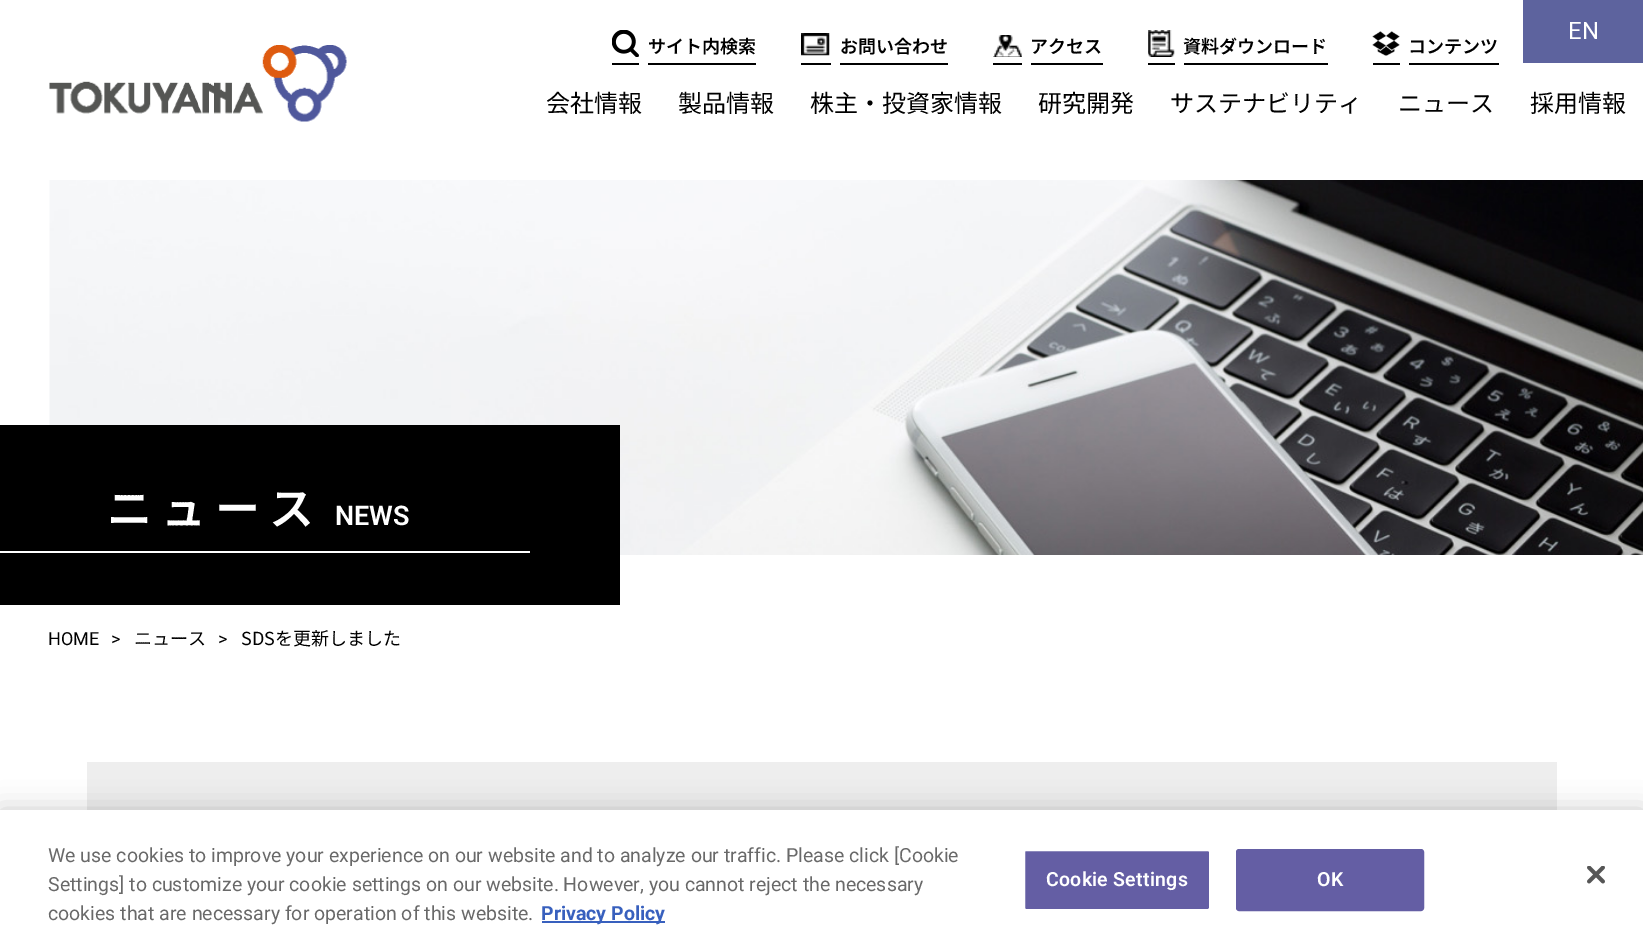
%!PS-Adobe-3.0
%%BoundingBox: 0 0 1643 943
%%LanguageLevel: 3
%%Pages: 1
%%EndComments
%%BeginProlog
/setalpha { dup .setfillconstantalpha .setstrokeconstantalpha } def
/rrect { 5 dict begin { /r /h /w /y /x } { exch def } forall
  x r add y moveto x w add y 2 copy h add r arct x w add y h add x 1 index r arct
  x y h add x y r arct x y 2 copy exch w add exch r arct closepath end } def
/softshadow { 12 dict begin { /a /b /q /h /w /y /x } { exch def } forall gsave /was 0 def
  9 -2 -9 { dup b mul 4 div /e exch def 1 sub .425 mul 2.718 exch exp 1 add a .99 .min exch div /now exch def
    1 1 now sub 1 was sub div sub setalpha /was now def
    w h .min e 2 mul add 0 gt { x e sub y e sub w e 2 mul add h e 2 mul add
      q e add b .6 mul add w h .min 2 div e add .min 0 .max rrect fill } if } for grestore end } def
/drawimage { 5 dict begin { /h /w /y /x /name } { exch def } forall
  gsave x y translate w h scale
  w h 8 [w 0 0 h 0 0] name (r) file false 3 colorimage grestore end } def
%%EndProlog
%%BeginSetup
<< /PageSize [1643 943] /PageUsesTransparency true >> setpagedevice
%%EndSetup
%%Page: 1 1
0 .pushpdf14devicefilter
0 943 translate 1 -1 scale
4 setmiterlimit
1 setgray
0 0 1643 943 rectfill
0.365 0.388 0.62 setrgbcolor
1523 0 120 63 rectfill
(images/1.raw) 49 45 298 77 drawimage
0 setgray
612 63 27 2 rectfill
648 63 108 2 rectfill
(images/2.raw) 612 30 27 27 drawimage
801 63 30 2 rectfill
840 63 108 2 rectfill
(images/3.raw) 801 33 29 23 drawimage
993 63 29 2 rectfill
1031 63 72 2 rectfill
(images/4.raw) 993 35 29 22 drawimage
1148 63 27 2 rectfill
1184 63 144 2 rectfill
(images/5.raw) 1148 30 27 27 drawimage
1373 63 27 2 rectfill
1409 63 90 2 rectfill
(images/6.raw) 1372 31 28 25 drawimage
(images/7.raw) 49 180 1594 375 drawimage
0 425 620 180 rectfill
1 setgray
0 551 530 2 rectfill
0.933 setgray
87 762 1470 48 rectfill
0 setgray
0 810 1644 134 0 13.5 0.2 softshadow
1 setgray
0 810 1643 133 rectfill
0.22 0.376 0.745 setrgbcolor
542 921 123 2 rectfill
0.392 0.369 0.643 setrgbcolor
1024 850 186 60 2 rrect gsave fill grestore
1 setgray
2 setlinewidth
stroke
0.392 0.369 0.643 setrgbcolor
1237 850 186 60 2 rrect gsave fill grestore
stroke
(images/8.raw) 1587 866 18 18 drawimage
/Roboto-Regular [24 0 0 -24 0 0] selectfont
1 setgray
1568 39 moveto (EN) show
/NotoSansJP-SemiBold [18 0 0 -18 0 0] selectfont
0 setgray
648 53 moveto (サイト内検索) show
840 53 moveto (お問い合わせ) show
1030 53 moveto (アクセス) show
1183 53 moveto (資料ダウンロード) show
1408 53 moveto (コンテンツ) show
/NotoSansJP-Regular [24 0 0 -24 0 0] selectfont
546 112 moveto (会社情報) show
678 112 moveto (製品情報) show
810 112 moveto (株主・投資家情報) show
1038 112 moveto (研究開発) show
1170 112 moveto (サステナビリティ) show
1398 112 moveto (ニュース) show
1530 112 moveto (採用情報) show
/NotoSansJP-SemiBold [45 0 0 -45 0 0] selectfont
1 setgray
107 525 moveto 9 0 (ニュース) ashow
/Roboto-SemiBold [27 0 0 -27 0 0] selectfont
335 525 moveto (NEWS) show
/Roboto-Regular [18 0 0 -18 0 0] selectfont
0 setgray
48 645 moveto (HOME) show
111 645 moveto (>) show
/NotoSansJP-Regular [18 0 0 -18 0 0] selectfont
134 645 moveto (ニュース) show
/Roboto-Regular [18 0 0 -18 0 0] selectfont
218 645 moveto (>) show
/NotoSansJP-Regular [18 0 0 -18 0 0] selectfont
241 645 moveto (SDSを更新しました) show
/Roboto-Regular [19.5 0 0 -19.5 0 0] selectfont
0.412 setgray
48 862 moveto (We use cookies to improve your experience on our website and to analyze our traffic. Please click [Cookie) show
48 891 moveto (Settings] to customize your cookie settings on our website. However, you cannot reject the necessary) show
48 920 moveto (cookies that are necessary for operation of this website.) show
/Roboto-Bold [19.5 0 0 -19.5 0 0] selectfont
0.22 0.376 0.745 setrgbcolor
541 920 moveto (Privacy Policy) show
/Roboto-SemiBold [19.5 0 0 -19.5 0 0] selectfont
1 setgray
1046 886 moveto 0.25 0 (Cookie Settings) ashow
1317 886 moveto 0.25 0 (OK) ashow
.poppdf14devicefilter showpage
%%EOF
